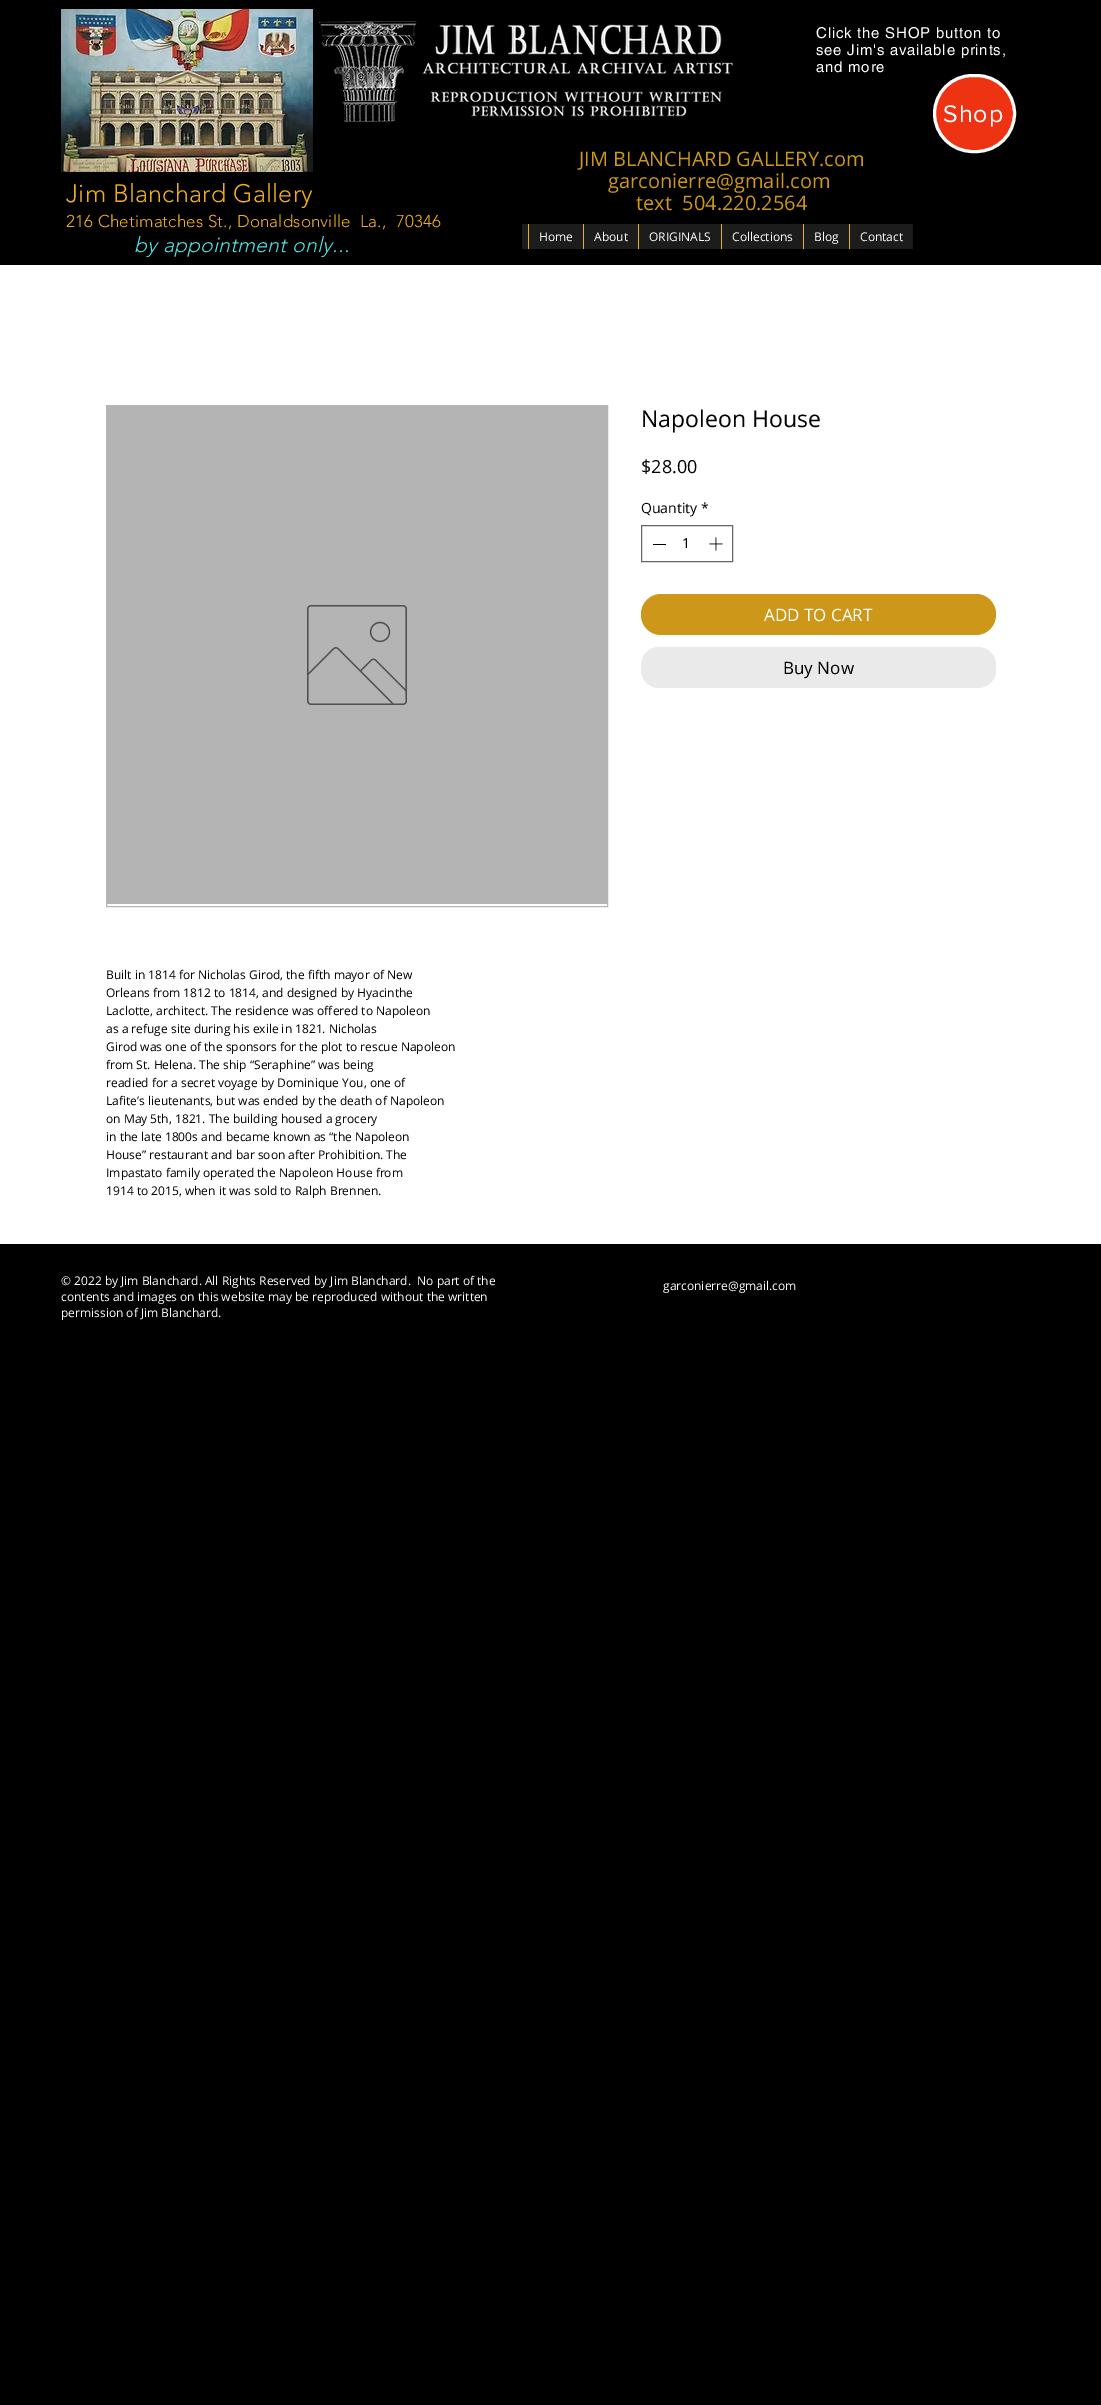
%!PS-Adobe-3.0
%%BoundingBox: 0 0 1101 2405
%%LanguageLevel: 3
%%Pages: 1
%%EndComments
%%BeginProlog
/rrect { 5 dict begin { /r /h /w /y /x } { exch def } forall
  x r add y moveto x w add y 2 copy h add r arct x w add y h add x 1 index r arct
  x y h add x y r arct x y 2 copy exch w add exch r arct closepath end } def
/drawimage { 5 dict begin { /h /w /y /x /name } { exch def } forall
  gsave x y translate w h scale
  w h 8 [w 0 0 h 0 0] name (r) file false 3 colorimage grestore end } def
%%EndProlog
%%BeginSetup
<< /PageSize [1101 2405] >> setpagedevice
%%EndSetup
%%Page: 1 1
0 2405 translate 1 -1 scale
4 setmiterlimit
0 setgray
0 0 1101 2405 rectfill
(images/1.raw) 61 9 252 163 drawimage
(images/2.raw) 319 21 416 101 drawimage
0.929 0.2 0.071 setrgbcolor
934.5 75.5 80 76 38 rrect gsave fill grestore
1 setgray
3 setlinewidth
stroke
0.11 setgray
522 224 391 25 rectfill
0.937 0.682 0.129 setrgbcolor
528 224 1 25 rectfill
583 224 1 25 rectfill
638 224 1 25 rectfill
721 224 1 25 rectfill
803 224 1 25 rectfill
849 224 1 25 rectfill
1 setgray
0 265 1101 979 rectfill
0.4 setgray
1 setlinewidth
641.5 525.5 91 36 rectstroke
0 setgray
653 544 13 1 rectfill
(images/3.raw) 709 537 14 14 drawimage
0.804 0.592 0.102 setrgbcolor
641 594 355 41 20 rrect fill
0.918 setgray
641 647 355 41 18 rrect fill
0.706 setgray
106.5 405.5 501 501 rectstroke
107 406 500 498 rectfill
(images/4.raw) 307 605 100 100 drawimage
/helvetica-Regular [15 0 0 -15 0 0] selectfont
1 setgray
816 38 moveto 0.75 0 (Click the SHOP button to) ashow
816 55 moveto 0.75 0 (see Jim's available prints,) ashow
816 72 moveto 0.75 0 (and more) ashow
/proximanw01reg-Regular [25 0 0 -25 0 0] selectfont
943 122 moveto 1 0 (Shop) ashow
/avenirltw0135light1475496-Light [25 0 0 -25 0 0] selectfont
0.937 0.682 0.129 setrgbcolor
66 202 moveto 0.25 0 (Jim Blanchard Gallery) ashow
/avenirltw0135light1475496-Light [17 0 0 -17 0 0] selectfont
66 227 moveto 0.15 0 (216 Chetimatches St., Donaldsonville  La.,  70346) ashow
/avenirltw0135light1475496-LightItalic [21 0 0 -21 0 0] selectfont
0.318 0.878 0.886 setrgbcolor
134 252 moveto 0.25 0 (by appointment only...) ashow
/OpenSans-Regular [20 0 0 -20 0 0] selectfont
0.804 0.592 0.102 setrgbcolor
579 166 moveto (JIM BLANCHARD GALLERY.com) show
608 188 moveto (garconierre@gmail.com) show
636 210 moveto (text  504.220.2564) show
/OpenSans-Regular [12 0 0 -12 0 0] selectfont
1 setgray
539 241 moveto (Home) show
594 241 moveto (About) show
649 241 moveto (ORIGINALS) show
732 241 moveto (Collections) show
814 241 moveto (Blog) show
860 241 moveto (Contact) show
/OpenSans-Regular [23 0 0 -23 0 0] selectfont
0 setgray
641 427 moveto (Napoleon House) show
/OpenSans-Regular [18 0 0 -18 0 0] selectfont
641 473 moveto ($28.00) show
/OpenSans-Regular [14 0 0 -14 0 0] selectfont
641 513 moveto (Quantity) show
701 513 moveto (*) show
682 548 moveto (1) show
/OpenSans-Regular [17 0 0 -17 0 0] selectfont
1 setgray
764 621 moveto (ADD TO CART) show
0 setgray
783 674 moveto (Buy Now) show
/OpenSans-Regular [12 0 0 -12 0 0] selectfont
106 979 moveto (Built in 1814 for Nicholas Girod, the fifth mayor of New) show
106 997 moveto (Orleans from 1812 to 1814, and designed by Hyacinthe) show
106 1015 moveto (Laclotte, architect. The residence was offered to Napoleon) show
106 1033 moveto (as a refuge site during his exile in 1821. Nicholas) show
106 1051 moveto (Girod was one of the sponsors for the plot to rescue Napoleon) show
106 1069 moveto (from St. Helena. The ship “Seraphine” was being) show
106 1087 moveto (readied for a secret voyage by Dominique You, one of) show
106 1105 moveto (Lafite’s lieutenants, but was ended by the death of Napoleon) show
106 1123 moveto (on May 5th, 1821. The building housed a grocery) show
106 1141 moveto (in the late 1800s and became known as “the Napoleon) show
106 1159 moveto (House” restaurant and bar soon after Prohibition. The) show
106 1177 moveto (Impastato family operated the Napoleon House from) show
106 1195 moveto (1914 to 2015, when it was sold to Ralph Brennen.) show
1 setgray
61 1285 moveto (© 2022 by Jim Blanchard. All Rights Reserved by Jim Blanchard.  No part of the) show
61 1301 moveto (contents and images on this website may be reproduced without the written) show
61 1317 moveto (permission of Jim Blanchard.) show
663 1290 moveto (garconierre@gmail.com) show
showpage
%%EOF
